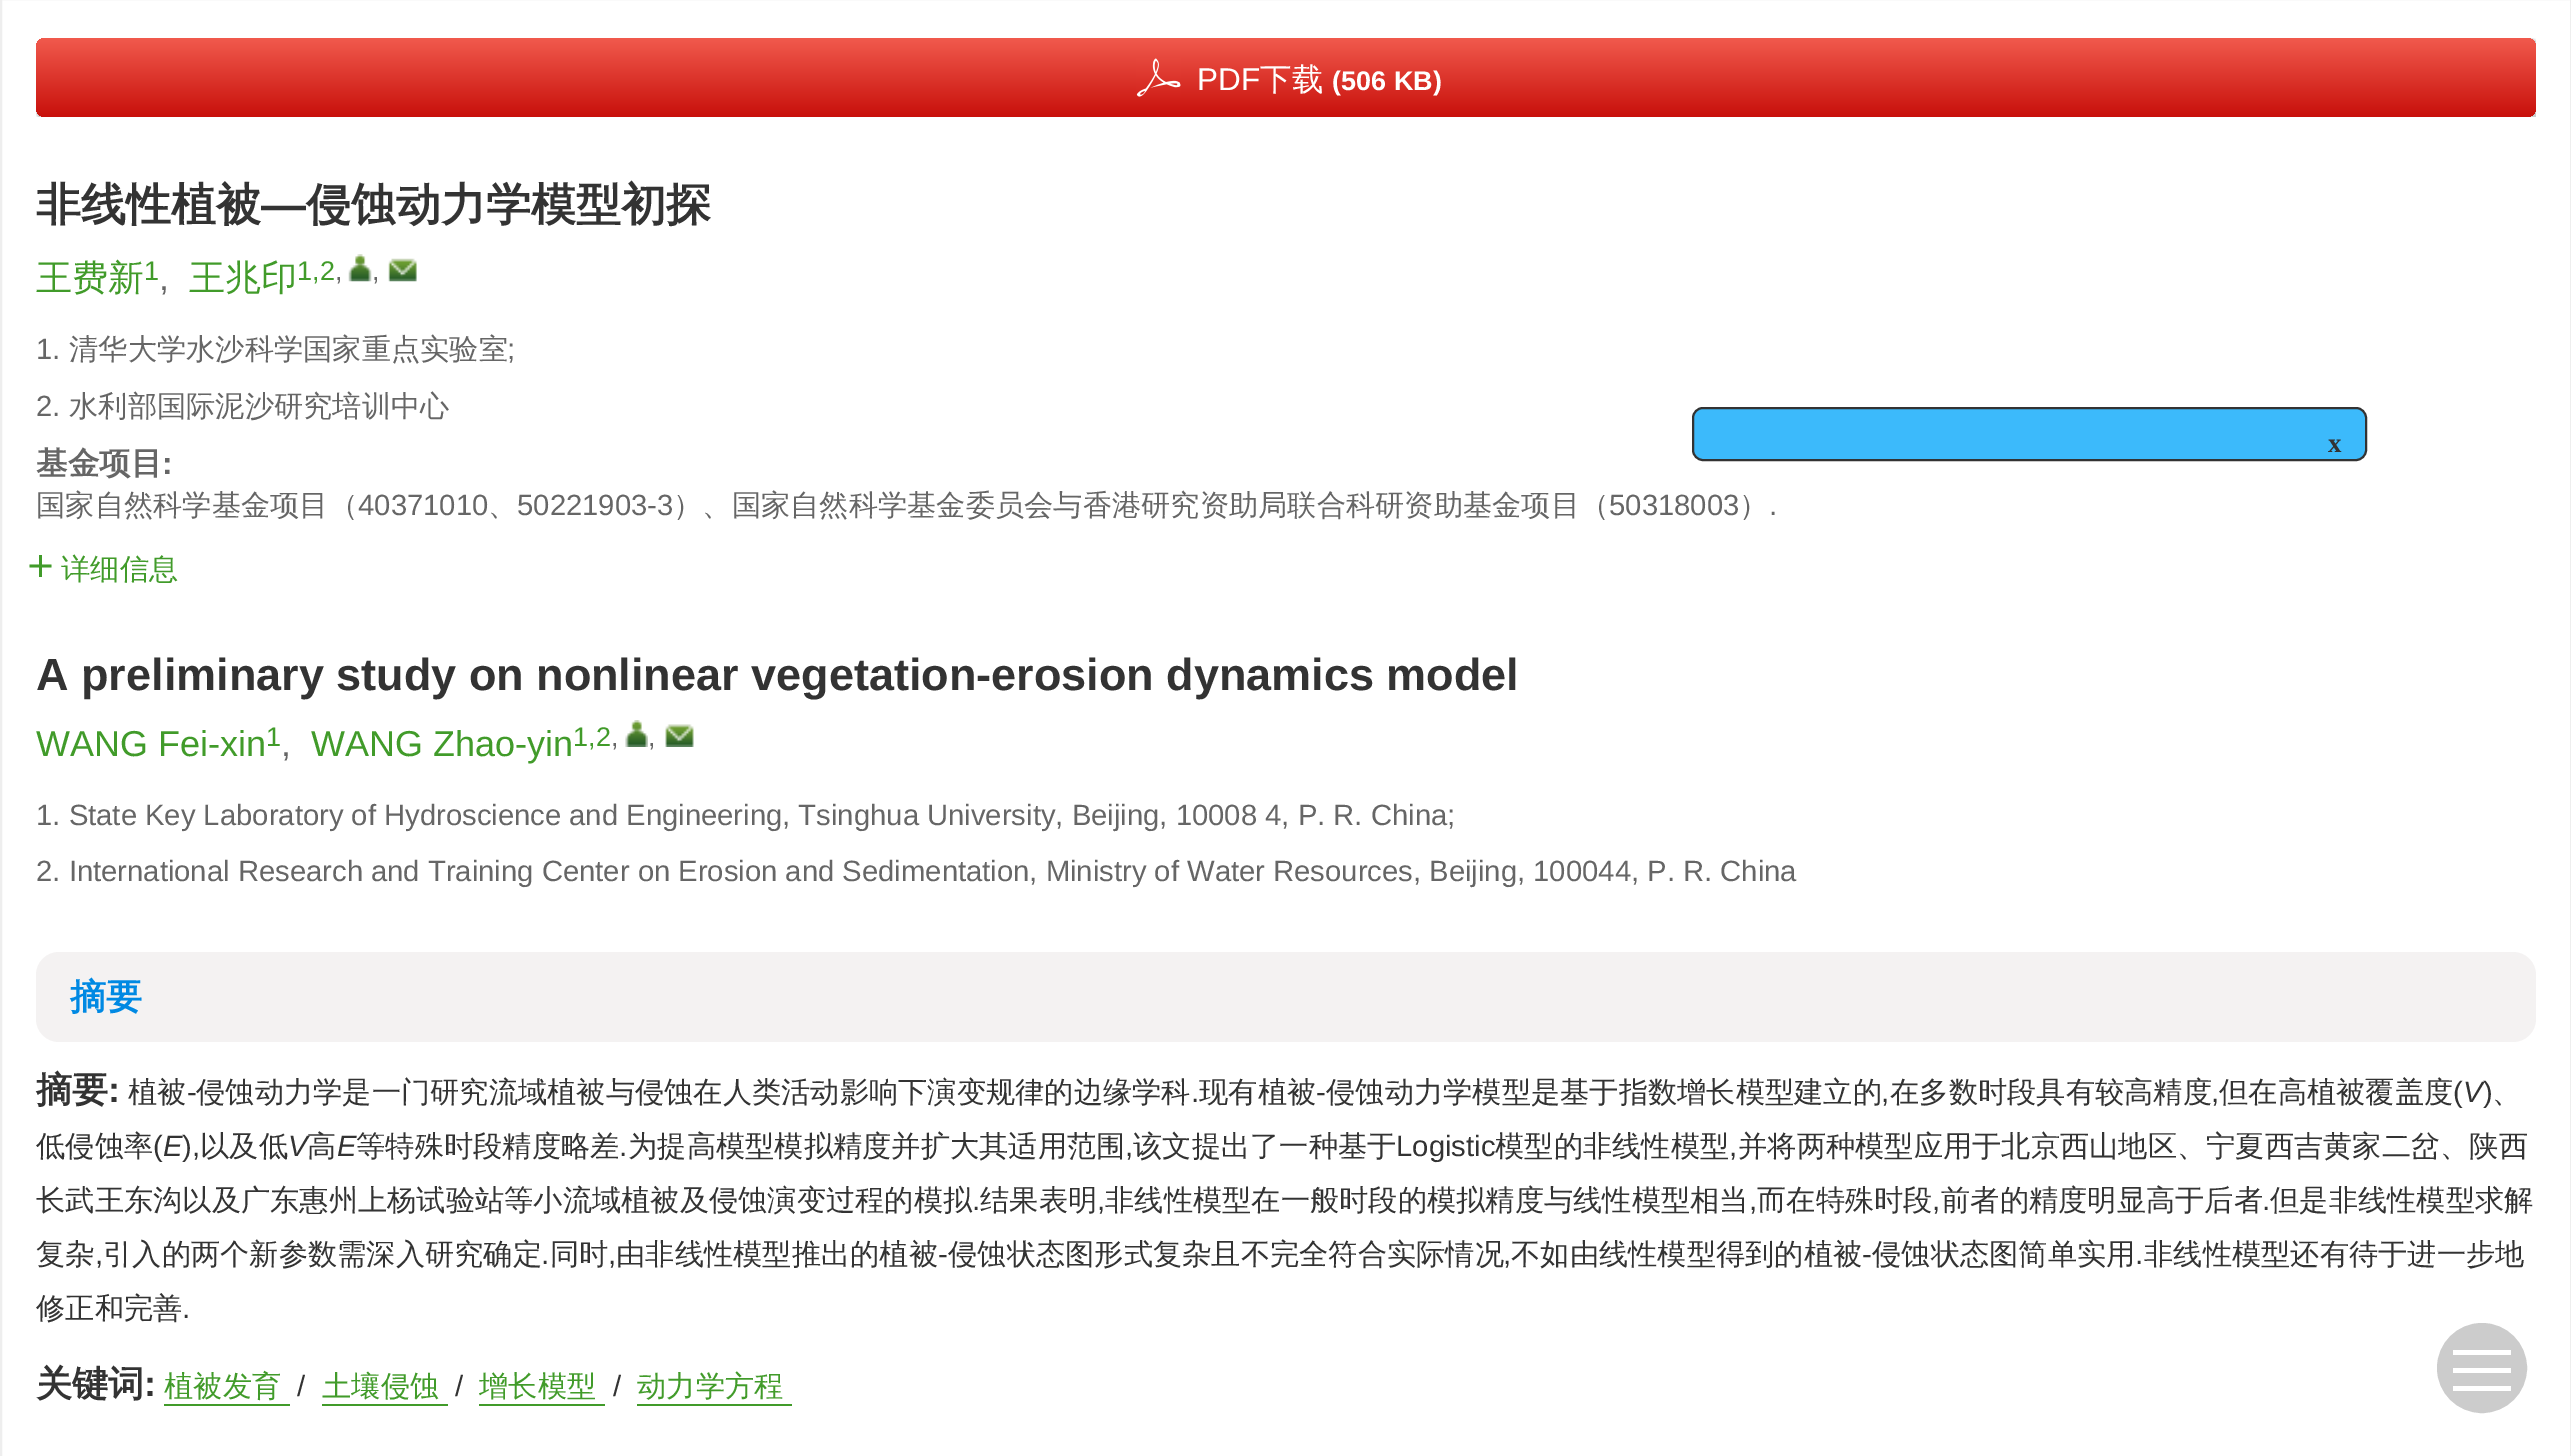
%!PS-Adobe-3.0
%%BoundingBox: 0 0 2571 1456
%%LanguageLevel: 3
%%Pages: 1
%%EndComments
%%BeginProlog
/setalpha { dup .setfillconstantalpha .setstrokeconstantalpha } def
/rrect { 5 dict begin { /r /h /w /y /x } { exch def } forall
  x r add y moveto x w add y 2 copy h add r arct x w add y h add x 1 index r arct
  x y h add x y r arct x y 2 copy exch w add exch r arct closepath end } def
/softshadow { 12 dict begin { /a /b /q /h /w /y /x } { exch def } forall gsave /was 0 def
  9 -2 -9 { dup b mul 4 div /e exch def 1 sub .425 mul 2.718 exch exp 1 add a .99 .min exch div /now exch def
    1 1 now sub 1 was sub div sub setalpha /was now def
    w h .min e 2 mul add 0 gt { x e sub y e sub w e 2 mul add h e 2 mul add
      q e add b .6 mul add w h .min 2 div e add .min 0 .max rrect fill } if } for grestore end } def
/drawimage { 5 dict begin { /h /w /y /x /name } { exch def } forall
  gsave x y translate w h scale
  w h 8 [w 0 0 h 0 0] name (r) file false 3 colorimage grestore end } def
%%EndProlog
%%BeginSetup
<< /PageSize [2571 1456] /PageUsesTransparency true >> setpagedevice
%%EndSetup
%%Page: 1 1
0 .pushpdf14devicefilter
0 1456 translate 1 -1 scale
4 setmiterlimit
1 setgray
0 0 2571 1456 rectfill
0.933 setgray
2 setlinewidth
1 -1 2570 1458 rectstroke
gsave
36 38 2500 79 rectclip
0 setgray
36 38 2504 84 11 1 0.2 softshadow
grestore
gsave 36 38 2500 79 9 rrect clip newpath
<< /ShadingType 2 /ColorSpace /DeviceRGB /Coords [1286 38 1286 117] /Extend [true true] /Function << /FunctionType 2 /Domain [0 1] /C0 [0.945 0.353 0.302] /C1 [0.784 0.063 0.043] /N 1 >> >> shfill grestore
(images/1.raw) 1136 58 45 39 drawimage
(images/2.raw) 348 254 24 28 drawimage
(images/3.raw) 388 258 29 24 drawimage
0.255 0.608 0.165 setrgbcolor
newpath 29.5 564.5 moveto 51.5 564.5 lineto 51.5 567.5 lineto 29.5 567.5 lineto closepath 39 555 moveto 42 555 lineto 42 577 lineto 39 577 lineto closepath fill
(images/4.raw) 625 720 23 27 drawimage
(images/5.raw) 665 724 29 23 drawimage
0.957 0.949 0.949 setrgbcolor
36 952 2500 90 23 rrect fill
0.255 0.608 0.165 setrgbcolor
164 1404 126 2 rectfill
322 1404 126 2 rectfill
479 1404 126 2 rectfill
637 1404 155 2 rectfill
0.8 setgray
newpath 2482 1368 44 0 360 arc closepath gsave fill grestore
stroke
1 setgray
2453 1350 58 5 rectfill
2453 1368 58 5 rectfill
2453 1386 58 5 rectfill
0.235 0.729 0.984 setrgbcolor
1693 408 673 52 10 rrect gsave fill grestore
0.2 setgray
stroke
/LiberationSans-Regular [31.5 0 0 -31.5 0 0] selectfont
1 setgray
1197 90 moveto (PDF) show
/WenQuanYiZenHei-Medium [31.5 0 0 -31.5 0 0] selectfont
1260 90 moveto (下载) show
/LiberationSans-Bold [27 0 0 -27 0 0] selectfont
1332 90 moveto (\(506 KB\)) show
/WenQuanYiZenHei-Bold [45 0 0 -45 0 0] selectfont
0.2 setgray
36 220 moveto (非线性植被) show
/LiberationSans-Bold [45 0 0 -45 0 0] selectfont
261 220 moveto (—) show
/WenQuanYiZenHei-Bold [45 0 0 -45 0 0] selectfont
306 220 moveto (侵蚀动力学模型初探) show
/WenQuanYiZenHei-Medium [36 0 0 -36 0 0] selectfont
0.255 0.608 0.165 setrgbcolor
36 290 moveto (王费新) show
/LiberationSans-Regular [27 0 0 -27 0 0] selectfont
144 280 moveto (1) show
/LiberationSans-Regular [36 0 0 -36 0 0] selectfont
0.4 setgray
159 290 moveto (,) show
/WenQuanYiZenHei-Medium [36 0 0 -36 0 0] selectfont
0.255 0.608 0.165 setrgbcolor
189 290 moveto (王兆印) show
/LiberationSans-Regular [27 0 0 -27 0 0] selectfont
297 280 moveto (1,2) show
0.4 setgray
335 280 moveto (,) show
372 280 moveto (,) show
/LiberationSans-Regular [29.25 0 0 -29.25 0 0] selectfont
36 359 moveto (1.) show
/WenQuanYiZenHei-Medium [29.25 0 0 -29.25 0 0] selectfont
69 359 moveto (清华大学水沙科学国家重点实验室) show
/LiberationSans-Regular [29.25 0 0 -29.25 0 0] selectfont
507 359 moveto (;) show
36 416 moveto (2.) show
/WenQuanYiZenHei-Medium [29.25 0 0 -29.25 0 0] selectfont
69 416 moveto (水利部国际泥沙研究培训中心) show
/WenQuanYiZenHei-Bold [31.5 0 0 -31.5 0 0] selectfont
36 474 moveto (基金项目) show
/LiberationSans-Bold [31.5 0 0 -31.5 0 0] selectfont
162 474 moveto (:) show
/WenQuanYiZenHei-Medium [29.25 0 0 -29.25 0 0] selectfont
36 515 moveto (国家自然科学基金项目（) show
/LiberationSans-Regular [29.25 0 0 -29.25 0 0] selectfont
358 515 moveto (40371010) show
/WenQuanYiZenHei-Medium [29.25 0 0 -29.25 0 0] selectfont
488 515 moveto (、) show
/LiberationSans-Regular [29.25 0 0 -29.25 0 0] selectfont
517 515 moveto (50221903-3) show
/WenQuanYiZenHei-Medium [29.25 0 0 -29.25 0 0] selectfont
673 515 moveto (）、国家自然科学基金委员会与香港研究资助局联合科研资助基金项目（) show
/LiberationSans-Regular [29.25 0 0 -29.25 0 0] selectfont
1609 515 moveto (50318003) show
/WenQuanYiZenHei-Medium [29.25 0 0 -29.25 0 0] selectfont
1739 515 moveto (）) show
/LiberationSans-Regular [29.25 0 0 -29.25 0 0] selectfont
1769 515 moveto (.) show
/WenQuanYiZenHei-Medium [29.25 0 0 -29.25 0 0] selectfont
0.255 0.608 0.165 setrgbcolor
61 579 moveto (详细信息) show
/LiberationSans-Bold [45 0 0 -45 0 0] selectfont
0.2 setgray
36 690 moveto (A preliminary study on nonlinear vegetation-erosion dynamics model) show
/LiberationSans-Regular [36 0 0 -36 0 0] selectfont
0.255 0.608 0.165 setrgbcolor
36 756 moveto (WANG Fei-xin) show
/LiberationSans-Regular [27 0 0 -27 0 0] selectfont
266 746 moveto (1) show
/LiberationSans-Regular [36 0 0 -36 0 0] selectfont
0.4 setgray
281 756 moveto (,) show
0.255 0.608 0.165 setrgbcolor
311 756 moveto (WANG Zhao-yin) show
/LiberationSans-Regular [27 0 0 -27 0 0] selectfont
573 746 moveto (1,2) show
0.4 setgray
611 746 moveto (,) show
648 746 moveto (,) show
/LiberationSans-Regular [29.25 0 0 -29.25 0 0] selectfont
36 825 moveto (1. State Key Laboratory of Hydroscience and Engineering, Tsinghua University, Beijing, 10008 4, P. R. China;) show
36 881 moveto (2. International Research and Training Center on Erosion and Sedimentation, Ministry of Water Resources, Beijing, 100044, P. R. China) show
/WenQuanYiZenHei-Bold [36 0 0 -36 0 0] selectfont
0 0.537 0.89 setrgbcolor
70 1009 moveto (摘要) show
0.2 setgray
36 1102 moveto (摘要) show
/LiberationSans-Bold [36 0 0 -36 0 0] selectfont
108 1102 moveto (:) show
/WenQuanYiZenHei-Medium [29.25 0 0 -29.25 0 0] selectfont
128 1102 moveto (植被) show
/LiberationSans-Regular [29.25 0 0 -29.25 0 0] selectfont
187 1102 moveto (-) show
/WenQuanYiZenHei-Medium [29.25 0 0 -29.25 0 0] selectfont
196 1102 moveto (侵蚀动力学是一门研究流域植被与侵蚀在人类活动影响下演变规律的边缘学科) show
1199 1102 moveto (现有植被) show
/LiberationSans-Regular [29.25 0 0 -29.25 0 0] selectfont
1316 1102 moveto (-) show
/WenQuanYiZenHei-Medium [29.25 0 0 -29.25 0 0] selectfont
1326 1102 moveto (侵蚀动力学模型是基于指数增长模型建立的) show
1890 1102 moveto (在多数时段具有较高精度) show
2219 1102 moveto (但在高植被覆盖度) show
/LiberationSans-Regular [29.25 0 0 -29.25 0 0] selectfont
2453 1102 moveto (\() show
/LiberationSans-Italic [29.25 0 0 -29.25 0 0] selectfont
2463 1102 moveto (V) show
/LiberationSans-Regular [29.25 0 0 -29.25 0 0] selectfont
2483 1102 moveto (\)) show
1191 1102 moveto (.) show
1881 1102 moveto (,) show
2211 1102 moveto (,) show
/WenQuanYiZenHei-Medium [29.25 0 0 -29.25 0 0] selectfont
2492 1102 moveto (、) show
36 1156 moveto (低侵蚀率) show
/LiberationSans-Regular [29.25 0 0 -29.25 0 0] selectfont
153 1156 moveto (\() show
/LiberationSans-Italic [29.25 0 0 -29.25 0 0] selectfont
163 1156 moveto (E) show
/LiberationSans-Regular [29.25 0 0 -29.25 0 0] selectfont
182 1156 moveto (\),) show
/WenQuanYiZenHei-Medium [29.25 0 0 -29.25 0 0] selectfont
200 1156 moveto (以及低) show
/LiberationSans-Italic [29.25 0 0 -29.25 0 0] selectfont
288 1156 moveto (V) show
/WenQuanYiZenHei-Medium [29.25 0 0 -29.25 0 0] selectfont
307 1156 moveto (高) show
/LiberationSans-Italic [29.25 0 0 -29.25 0 0] selectfont
337 1156 moveto (E) show
/WenQuanYiZenHei-Medium [29.25 0 0 -29.25 0 0] selectfont
356 1156 moveto (等特殊时段精度略差) show
/LiberationSans-Regular [29.25 0 0 -29.25 0 0] selectfont
619 1156 moveto (.) show
/WenQuanYiZenHei-Medium [29.25 0 0 -29.25 0 0] selectfont
628 1156 moveto (为提高模型模拟精度并扩大其适用范围) show
/LiberationSans-Regular [29.25 0 0 -29.25 0 0] selectfont
1125 1156 moveto (,) show
/WenQuanYiZenHei-Medium [29.25 0 0 -29.25 0 0] selectfont
1133 1156 moveto (该文提出了一种基于) show
/LiberationSans-Regular [29.25 0 0 -29.25 0 0] selectfont
1396 1156 moveto (Logistic) show
/WenQuanYiZenHei-Medium [29.25 0 0 -29.25 0 0] selectfont
1495 1156 moveto (模型的非线性模型) show
/LiberationSans-Regular [29.25 0 0 -29.25 0 0] selectfont
1729 1156 moveto (,) show
/WenQuanYiZenHei-Medium [29.25 0 0 -29.25 0 0] selectfont
1738 1156 moveto (并将两种模型应用于北京西山地区、宁夏西吉黄家二岔、陕西) show
36 1210 moveto (长武王东沟以及广东惠州上杨试验站等小流域植被及侵蚀演变过程的模拟) show
/LiberationSans-Regular [29.25 0 0 -29.25 0 0] selectfont
972 1210 moveto (.) show
/WenQuanYiZenHei-Medium [29.25 0 0 -29.25 0 0] selectfont
980 1210 moveto (结果表明) show
/LiberationSans-Regular [29.25 0 0 -29.25 0 0] selectfont
1097 1210 moveto (,) show
/WenQuanYiZenHei-Medium [29.25 0 0 -29.25 0 0] selectfont
1105 1210 moveto (非线性模型在一般时段的模拟精度与线性模型相当) show
/LiberationSans-Regular [29.25 0 0 -29.25 0 0] selectfont
1749 1210 moveto (,) show
/WenQuanYiZenHei-Medium [29.25 0 0 -29.25 0 0] selectfont
1757 1210 moveto (而在特殊时段) show
/LiberationSans-Regular [29.25 0 0 -29.25 0 0] selectfont
1932 1210 moveto (,) show
/WenQuanYiZenHei-Medium [29.25 0 0 -29.25 0 0] selectfont
1941 1210 moveto (前者的精度明显高于后者) show
/LiberationSans-Regular [29.25 0 0 -29.25 0 0] selectfont
2262 1210 moveto (.) show
/WenQuanYiZenHei-Medium [29.25 0 0 -29.25 0 0] selectfont
2270 1210 moveto (但是非线性模型求解) show
36 1264 moveto (复杂) show
103 1264 moveto (引入的两个新参数需深入研究确定) show
550 1264 moveto (同时) show
616 1264 moveto (由非线性模型推出的植被) show
/LiberationSans-Regular [29.25 0 0 -29.25 0 0] selectfont
938 1264 moveto (-) show
/WenQuanYiZenHei-Medium [29.25 0 0 -29.25 0 0] selectfont
948 1264 moveto (侵蚀状态图形式复杂且不完全符合实际情况) show
1511 1264 moveto (不如由线性模型得到的植被) show
/LiberationSans-Regular [29.25 0 0 -29.25 0 0] selectfont
1862 1264 moveto (-) show
/WenQuanYiZenHei-Medium [29.25 0 0 -29.25 0 0] selectfont
1872 1264 moveto (侵蚀状态图简单实用) show
2144 1264 moveto (非线性模型还有待于进一步地) show
/LiberationSans-Regular [29.25 0 0 -29.25 0 0] selectfont
95 1264 moveto (,) show
541 1264 moveto (.) show
608 1264 moveto (,) show
1503 1264 moveto (,) show
2135 1264 moveto (.) show
/WenQuanYiZenHei-Medium [29.25 0 0 -29.25 0 0] selectfont
36 1318 moveto (修正和完善) show
/LiberationSans-Regular [29.25 0 0 -29.25 0 0] selectfont
182 1318 moveto (.) show
/WenQuanYiZenHei-Bold [36 0 0 -36 0 0] selectfont
36 1396 moveto (关键词) show
/LiberationSans-Bold [36 0 0 -36 0 0] selectfont
144 1396 moveto (:) show
/WenQuanYiZenHei-Medium [29.25 0 0 -29.25 0 0] selectfont
0.255 0.608 0.165 setrgbcolor
164 1396 moveto (植被发育) show
/LiberationSans-Regular [29.25 0 0 -29.25 0 0] selectfont
0.2 setgray
297 1396 moveto (/) show
/WenQuanYiZenHei-Medium [29.25 0 0 -29.25 0 0] selectfont
0.255 0.608 0.165 setrgbcolor
322 1396 moveto (土壤侵蚀) show
/LiberationSans-Regular [29.25 0 0 -29.25 0 0] selectfont
0.2 setgray
455 1396 moveto (/) show
/WenQuanYiZenHei-Medium [29.25 0 0 -29.25 0 0] selectfont
0.255 0.608 0.165 setrgbcolor
479 1396 moveto (增长模型) show
/LiberationSans-Regular [29.25 0 0 -29.25 0 0] selectfont
0.2 setgray
613 1396 moveto (/) show
/WenQuanYiZenHei-Medium [29.25 0 0 -29.25 0 0] selectfont
0.255 0.608 0.165 setrgbcolor
637 1396 moveto (动力学方程) show
/LiberationSerif-Bold [27 0 0 -27 0 0] selectfont
0.2 setgray
2328 452 moveto (x) show
.poppdf14devicefilter showpage
%%EOF
